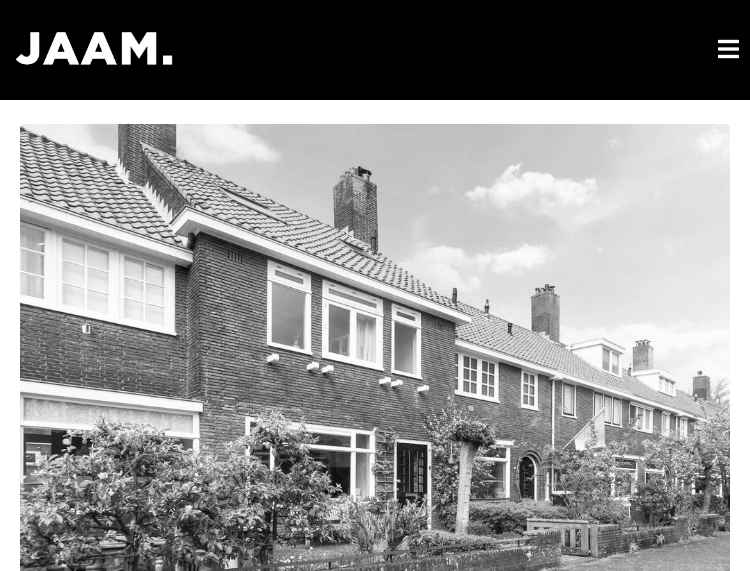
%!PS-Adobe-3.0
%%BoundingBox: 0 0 750 571
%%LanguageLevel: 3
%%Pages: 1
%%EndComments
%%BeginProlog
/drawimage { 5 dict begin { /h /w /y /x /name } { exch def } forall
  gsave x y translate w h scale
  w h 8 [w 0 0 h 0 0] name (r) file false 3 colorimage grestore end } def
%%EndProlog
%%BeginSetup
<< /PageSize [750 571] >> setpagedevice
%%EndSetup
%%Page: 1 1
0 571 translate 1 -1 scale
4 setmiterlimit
1 setgray
0 0 750 571 rectfill
0 setgray
0 0 750 100 rectfill
(images/1.raw) 15 32 158 33 drawimage
(images/2.raw) 718 39 21 20 drawimage
(images/3.raw) 20 124 710 447 drawimage
showpage
%%EOF
